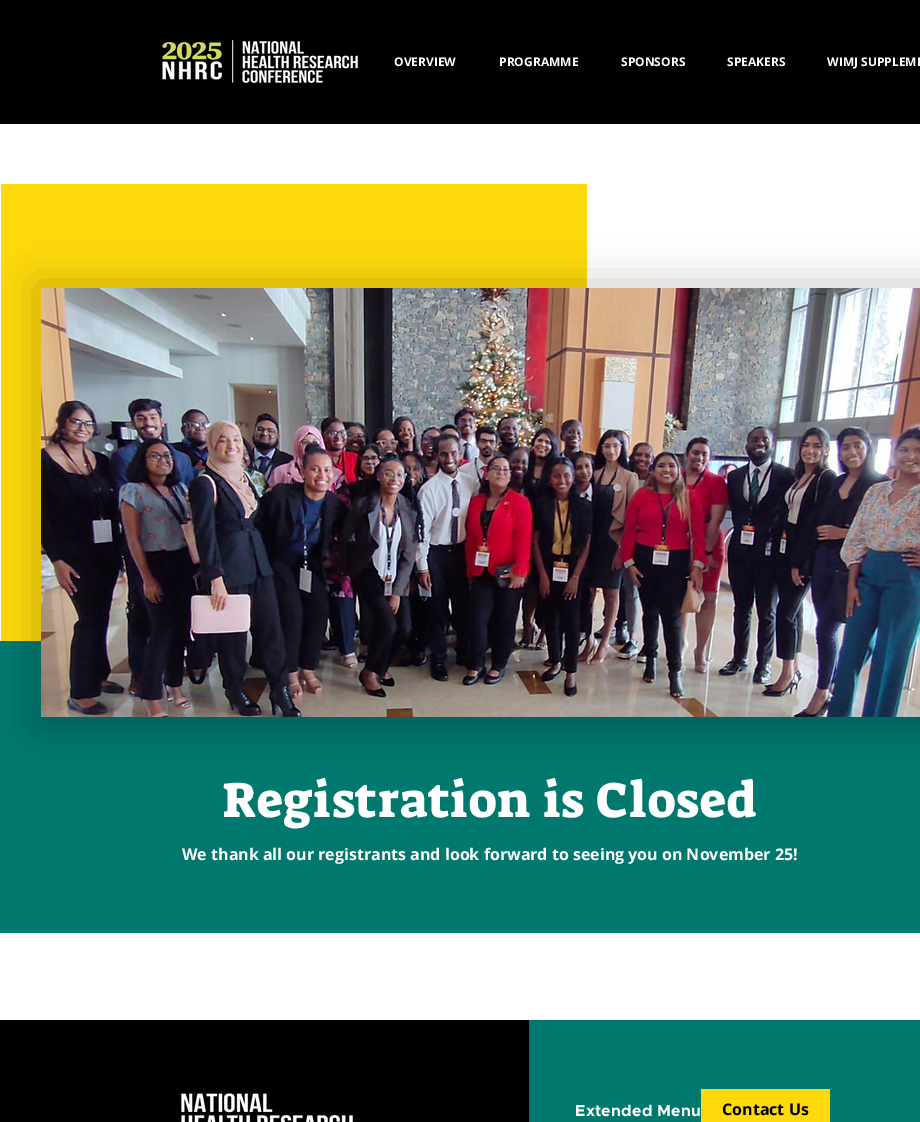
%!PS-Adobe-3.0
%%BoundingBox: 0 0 920 1122
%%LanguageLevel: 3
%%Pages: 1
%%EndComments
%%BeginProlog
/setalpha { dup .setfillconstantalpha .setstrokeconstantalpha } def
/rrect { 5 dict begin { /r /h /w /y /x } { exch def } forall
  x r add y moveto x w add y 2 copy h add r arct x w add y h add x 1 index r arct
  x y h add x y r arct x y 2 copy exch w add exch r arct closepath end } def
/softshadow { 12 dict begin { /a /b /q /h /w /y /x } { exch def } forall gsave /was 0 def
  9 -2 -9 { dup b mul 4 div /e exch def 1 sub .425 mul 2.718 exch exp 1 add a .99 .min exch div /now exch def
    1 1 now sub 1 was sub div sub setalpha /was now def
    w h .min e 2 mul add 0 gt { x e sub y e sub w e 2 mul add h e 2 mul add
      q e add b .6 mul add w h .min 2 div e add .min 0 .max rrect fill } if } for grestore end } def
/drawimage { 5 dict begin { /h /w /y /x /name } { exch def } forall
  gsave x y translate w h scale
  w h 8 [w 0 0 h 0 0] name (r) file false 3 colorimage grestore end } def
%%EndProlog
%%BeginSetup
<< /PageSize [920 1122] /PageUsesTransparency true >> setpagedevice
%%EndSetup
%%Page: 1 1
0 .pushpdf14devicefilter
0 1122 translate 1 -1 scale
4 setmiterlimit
1 setgray
0 0 920 1122 rectfill
0 setgray
0 0 920 124 rectfill
(images/1.raw) 162 40 196 43 drawimage
0.996 0.851 0.047 setrgbcolor
1 184 586 457 rectfill
0 0.471 0.431 setrgbcolor
0 641 920 292 rectfill
0 setgray
36 283 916 445 0 20 0.2 softshadow
(images/2.raw) 41 288 879 429 drawimage
0 1020 529 102 rectfill
(images/3.raw) 181 1093 172 29 drawimage
0 0.471 0.431 setrgbcolor
529 1020 391 102 rectfill
0.996 0.851 0.047 setrgbcolor
701 1089 129 33 rectfill
/OpenSans-Bold [12 0 0 -12 0 0] selectfont
1 setgray
394 66 moveto (OVERVIEW) show
499 66 moveto (PROGRAMME) show
621 66 moveto (SPONSORS) show
727 66 moveto (SPEAKERS) show
827 66 moveto (WIMJ SUPPLEME) show
/SuezOne-Regular [50 0 0 -50 0 0] selectfont
222 817 moveto 1 0 (Registration is Closed) ashow
/OpenSans-Bold [16 0 0 -16 0 0] selectfont
182 860 moveto (We thank all our registrants and look forward to seeing you on November 25!) show
/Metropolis-Bold [16 0 0 -16 0 0] selectfont
575 1116 moveto 0.25 0 (Extended Menu) ashow
/OpenSans-Bold [16 0 0 -16 0 0] selectfont
0 setgray
722 1115 moveto (Contact Us) show
.poppdf14devicefilter showpage
%%EOF
